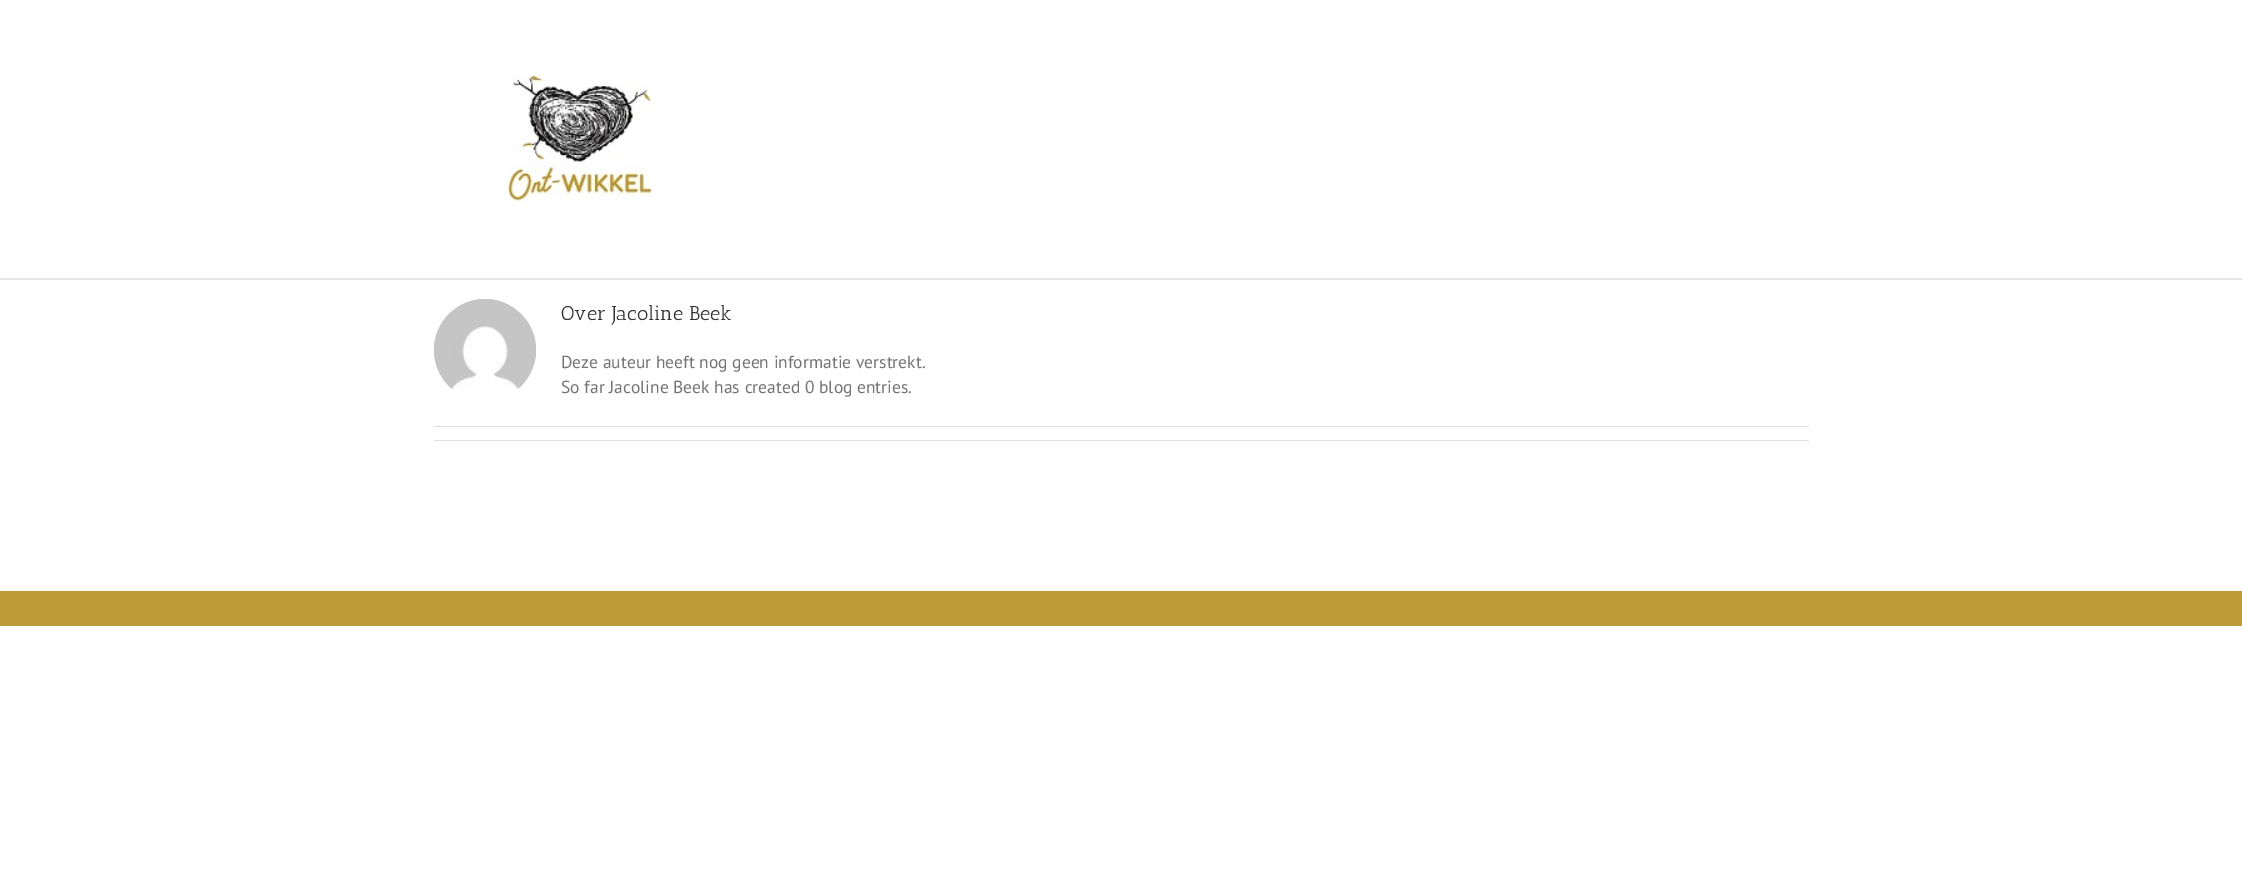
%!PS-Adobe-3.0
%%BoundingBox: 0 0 2242 878
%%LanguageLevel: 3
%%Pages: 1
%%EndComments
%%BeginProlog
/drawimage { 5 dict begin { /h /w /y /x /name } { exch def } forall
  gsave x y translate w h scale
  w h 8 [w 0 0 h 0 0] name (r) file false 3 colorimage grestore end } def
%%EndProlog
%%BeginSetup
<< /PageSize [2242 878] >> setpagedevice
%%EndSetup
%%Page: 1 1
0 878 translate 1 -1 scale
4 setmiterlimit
1 setgray
0 0 2242 878 rectfill
(images/1.raw) 508 76 144 126 drawimage
0.898 setgray
0 278 2242 2 rectfill
(images/2.raw) 434 299 102 91 drawimage
0.878 0.871 0.871 setrgbcolor
434 426 1375 1 rectfill
434 440 1375 1 rectfill
0.745 0.608 0.212 setrgbcolor
0 591 2242 35 rectfill
/AnticSlab-Regular [20 0 0 -20 0 0] selectfont
0.2 setgray
561 320 moveto (Over Jacoline Beek) show
/PTSans-Regular [17.5 0 0 -17.5 0 0] selectfont
0.455 setgray
561 368 moveto (Deze auteur heeft nog geen informatie verstrekt.) show
561 393 moveto (So far Jacoline Beek has created 0 blog entries.) show
showpage
%%EOF
